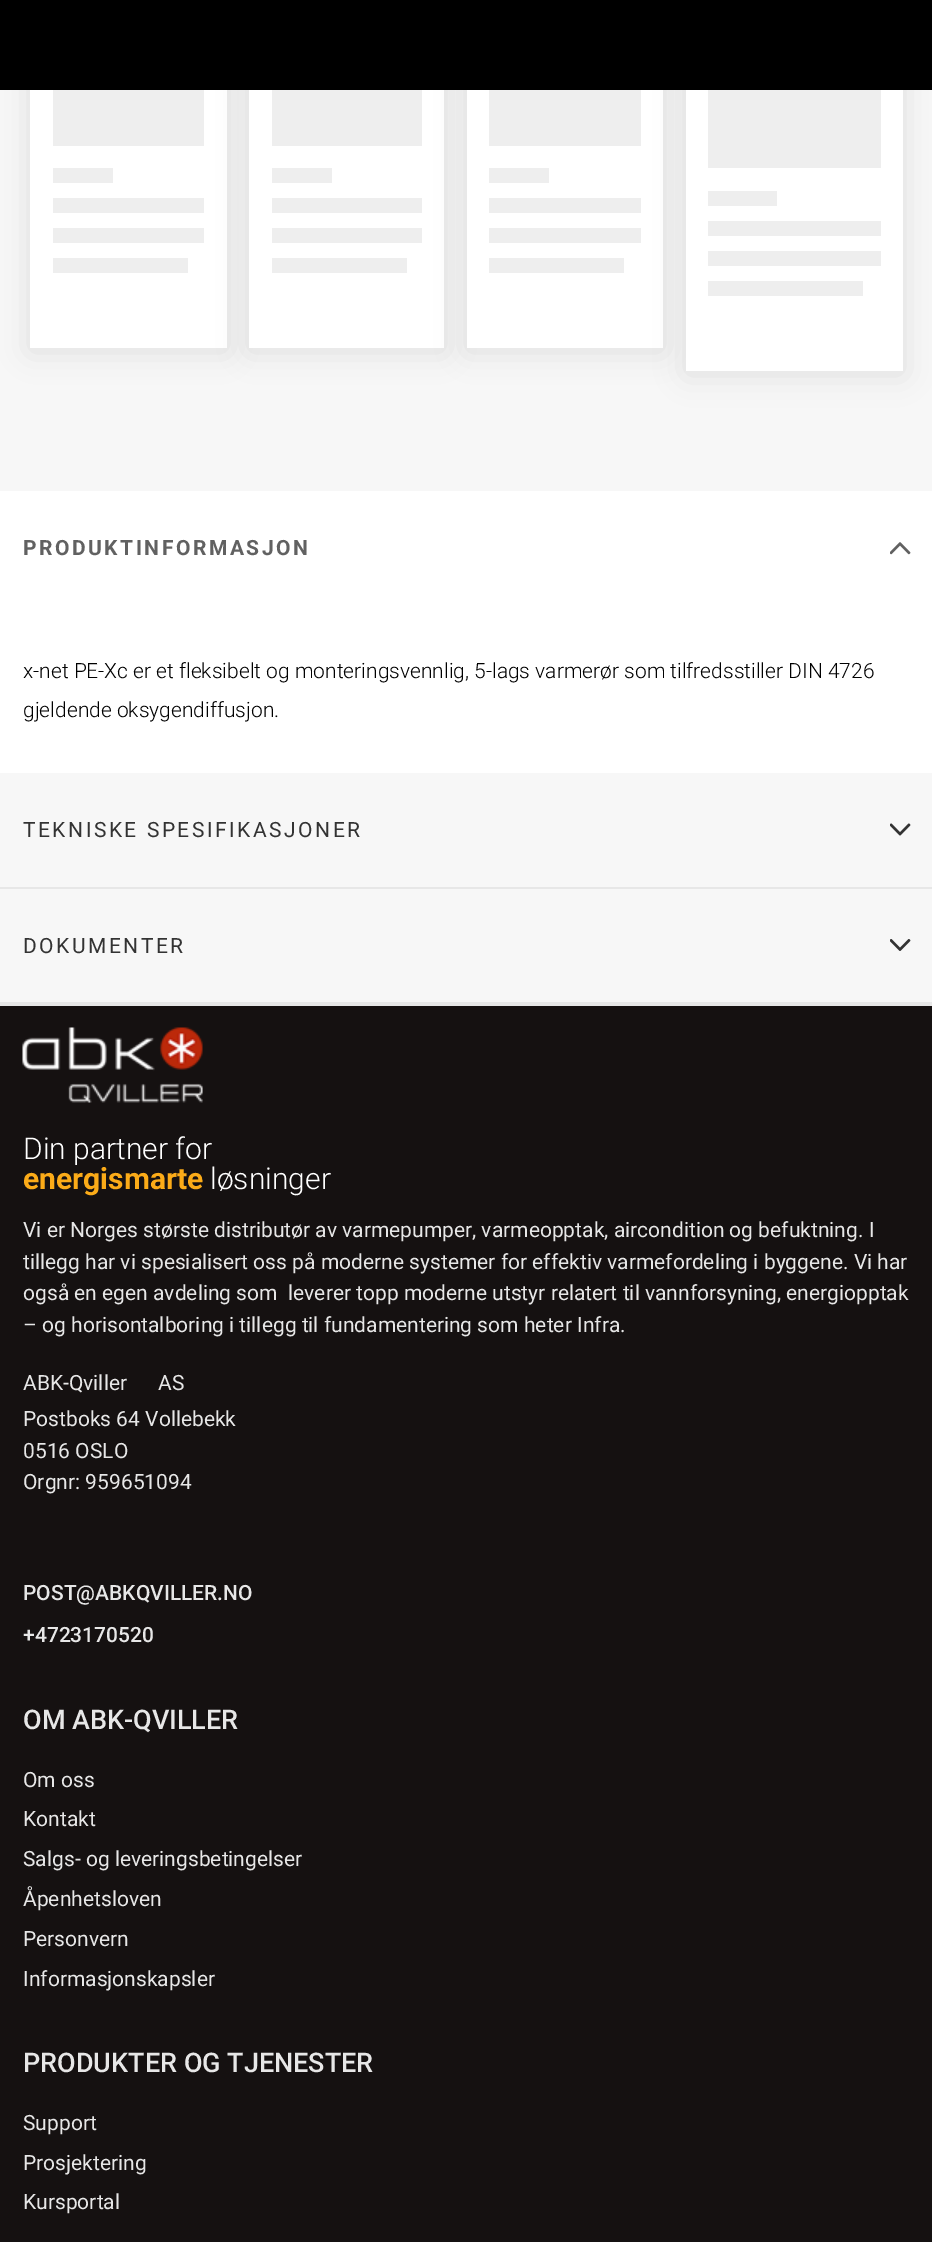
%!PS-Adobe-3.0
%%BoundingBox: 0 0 932 2242
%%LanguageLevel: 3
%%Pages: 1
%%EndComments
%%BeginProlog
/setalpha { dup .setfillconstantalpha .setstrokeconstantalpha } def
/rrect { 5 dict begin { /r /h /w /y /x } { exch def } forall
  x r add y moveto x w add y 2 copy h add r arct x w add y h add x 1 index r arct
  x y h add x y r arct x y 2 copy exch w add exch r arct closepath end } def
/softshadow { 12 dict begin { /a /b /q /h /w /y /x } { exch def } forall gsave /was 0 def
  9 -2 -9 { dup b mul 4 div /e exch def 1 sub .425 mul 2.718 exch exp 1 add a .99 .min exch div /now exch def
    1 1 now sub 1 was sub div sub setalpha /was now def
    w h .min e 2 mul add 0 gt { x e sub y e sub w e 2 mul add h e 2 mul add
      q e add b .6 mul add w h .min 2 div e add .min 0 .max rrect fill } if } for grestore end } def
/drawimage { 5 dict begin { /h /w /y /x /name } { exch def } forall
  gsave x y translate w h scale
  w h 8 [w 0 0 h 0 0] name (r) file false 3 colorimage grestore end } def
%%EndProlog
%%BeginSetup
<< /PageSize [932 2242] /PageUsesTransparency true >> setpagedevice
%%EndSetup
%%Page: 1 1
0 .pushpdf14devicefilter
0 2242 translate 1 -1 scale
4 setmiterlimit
0.969 setgray
0 0 932 2242 rectfill
0 setgray
30 -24 197 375 0 15 0.1 softshadow
1 setgray
30 90 197 258 rectfill
0 setgray
249 -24 195 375 0 15 0.1 softshadow
1 setgray
249 90 195 258 rectfill
0 setgray
467 -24 196 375 0 15 0.1 softshadow
1 setgray
467 90 196 258 rectfill
0 setgray
686 -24 217 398 0 15 0.1 softshadow
0 0 932 90 rectfill
gsave newpath 53 90 moveto 204 90 lineto 204 273 lineto 53 273 lineto closepath clip newpath
<< /ShadingType 2 /ColorSpace /DeviceRGB /Coords [-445 134 755 134] /Extend [true true] /Function << /FunctionType 3 /Domain [0 1] /Functions [<< /FunctionType 2 /Domain [0 1] /C0 [0.933 0.933 0.933] /C1 [0.933 0.933 0.933] /N 1 >> << /FunctionType 2 /Domain [0 1] /C0 [0.933 0.933 0.933] /C1 [0.867 0.867 0.867] /N 1 >> << /FunctionType 2 /Domain [0 1] /C0 [0.867 0.867 0.867] /C1 [0.933 0.933 0.933] /N 1 >> << /FunctionType 2 /Domain [0 1] /C0 [0.933 0.933 0.933] /C1 [0.933 0.933 0.933] /N 1 >>] /Bounds [0.08 0.18 0.33] /Encode [0 1 0 1 0 1 0 1] >> >> shfill grestore
1 setgray
53 146 151 22 rectfill
113 168 91 15 rectfill
53 183 151 15 rectfill
53 213 151 15 rectfill
53 243 151 15 rectfill
188 258 16 15 rectfill
gsave newpath 272 90 moveto 422 90 lineto 422 273 lineto 272 273 lineto closepath clip newpath
<< /ShadingType 2 /ColorSpace /DeviceRGB /Coords [-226 134 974 134] /Extend [true true] /Function << /FunctionType 3 /Domain [0 1] /Functions [<< /FunctionType 2 /Domain [0 1] /C0 [0.933 0.933 0.933] /C1 [0.933 0.933 0.933] /N 1 >> << /FunctionType 2 /Domain [0 1] /C0 [0.933 0.933 0.933] /C1 [0.867 0.867 0.867] /N 1 >> << /FunctionType 2 /Domain [0 1] /C0 [0.867 0.867 0.867] /C1 [0.933 0.933 0.933] /N 1 >> << /FunctionType 2 /Domain [0 1] /C0 [0.933 0.933 0.933] /C1 [0.933 0.933 0.933] /N 1 >>] /Bounds [0.08 0.18 0.33] /Encode [0 1 0 1 0 1 0 1] >> >> shfill grestore
272 146 150 22 rectfill
332 168 90 15 rectfill
272 183 150 15 rectfill
272 213 150 15 rectfill
272 243 150 15 rectfill
407 258 15 15 rectfill
gsave newpath 489 90 moveto 641 90 lineto 641 273 lineto 489 273 lineto closepath clip newpath
<< /ShadingType 2 /ColorSpace /DeviceRGB /Coords [-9 134 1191 134] /Extend [true true] /Function << /FunctionType 3 /Domain [0 1] /Functions [<< /FunctionType 2 /Domain [0 1] /C0 [0.933 0.933 0.933] /C1 [0.933 0.933 0.933] /N 1 >> << /FunctionType 2 /Domain [0 1] /C0 [0.933 0.933 0.933] /C1 [0.867 0.867 0.867] /N 1 >> << /FunctionType 2 /Domain [0 1] /C0 [0.867 0.867 0.867] /C1 [0.933 0.933 0.933] /N 1 >> << /FunctionType 2 /Domain [0 1] /C0 [0.933 0.933 0.933] /C1 [0.933 0.933 0.933] /N 1 >>] /Bounds [0.08 0.18 0.33] /Encode [0 1 0 1 0 1 0 1] >> >> shfill grestore
489 146 152 22 rectfill
549 168 92 15 rectfill
489 183 152 15 rectfill
489 213 152 15 rectfill
489 243 152 15 rectfill
624 258 17 15 rectfill
686 90 217 281 rectfill
gsave newpath 708 90 moveto 881 90 lineto 881 296 lineto 708 296 lineto closepath clip newpath
<< /ShadingType 2 /ColorSpace /DeviceRGB /Coords [210 146 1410 145] /Extend [true true] /Function << /FunctionType 3 /Domain [0 1] /Functions [<< /FunctionType 2 /Domain [0 1] /C0 [0.933 0.933 0.933] /C1 [0.933 0.933 0.933] /N 1 >> << /FunctionType 2 /Domain [0 1] /C0 [0.933 0.933 0.933] /C1 [0.867 0.867 0.867] /N 1 >> << /FunctionType 2 /Domain [0 1] /C0 [0.867 0.867 0.867] /C1 [0.933 0.933 0.933] /N 1 >> << /FunctionType 2 /Domain [0 1] /C0 [0.933 0.933 0.933] /C1 [0.933 0.933 0.933] /N 1 >>] /Bounds [0.08 0.18 0.33] /Encode [0 1 0 1 0 1 0 1] >> >> shfill grestore
708 168 173 23 rectfill
777 191 104 15 rectfill
708 206 173 15 rectfill
708 236 173 15 rectfill
708 266 173 15 rectfill
863 281 18 15 rectfill
0 491 932 282 rectfill
(images/1.raw) 890 542 21 13 drawimage
0.906 setgray
0 887 932 2 rectfill
(images/2.raw) 890 823 21 13 drawimage
(images/3.raw) 890 939 21 12 drawimage
0.082 0.067 0.067 setrgbcolor
0 1006 932 1236 rectfill
0.906 setgray
0 1002 932 4 rectfill
(images/4.raw) 22 1027 181 76 drawimage
/Roboto-Bold [21 0 0 -21 0 0] selectfont
0.38 setgray
23 555 moveto 2.5 0 (PRODUKTINFORMASJON) ashow
/Roboto-Light [21 0 0 -21 0 0] selectfont
0 setgray
23 678 moveto (x-net PE-Xc er et fleksibelt og monteringsvennlig, 5-lags varmerør som tilfredsstiller DIN 4726) show
23 717 moveto (gjeldende oksygendiffusjon.) show
/Roboto-Regular [21 0 0 -21 0 0] selectfont
0.2 setgray
23 837 moveto 2.5 0 (TEKNISKE SPESIFIKASJONER) ashow
23 953 moveto 2.5 0 (DOKUMENTER) ashow
/Roboto-Light [30 0 0 -30 0 0] selectfont
1 setgray
23 1159 moveto (Din partner for) show
/Roboto-Bold [30 0 0 -30 0 0] selectfont
0.984 0.671 0.094 setrgbcolor
23 1189 moveto (energismarte) show
/Roboto-Light [30 0 0 -30 0 0] selectfont
1 setgray
210 1189 moveto (løsninger) show
/Roboto-Regular [21 0 0 -21 0 0] selectfont
0.906 setgray
23 1237 moveto (Vi er Norges største distributør av varmepumper, varmeopptak, aircondition og befuktning. I) show
23 1269 moveto (tillegg har vi spesialisert oss på moderne systemer for effektiv varmefordeling i byggene. Vi har) show
23 1300 moveto (også en egen avdeling som  leverer topp moderne utstyr relatert til vannforsyning, energiopptak) show
23 1332 moveto (– og horisontalboring i tillegg til fundamentering som heter Infra.) show
23 1390 moveto 26 0 32 (ABK-Qviller AS) widthshow
23 1426 moveto (Postboks 64 Vollebekk) show
23 1458 moveto (0516 OSLO) show
23 1489 moveto (Orgnr: 959651094) show
/Roboto-Medium [21 0 0 -21 0 0] selectfont
23 1600 moveto (POST@ABKQVILLER.NO) show
23 1642 moveto (+4723170520) show
/Roboto-Medium [27 0 0 -27 0 0] selectfont
23 1729 moveto (OM ABK-QVILLER) show
/Roboto-Regular [21 0 0 -21 0 0] selectfont
23 1787 moveto (Om oss) show
23 1826 moveto (Kontakt) show
23 1866 moveto (Salgs- og leveringsbetingelser) show
23 1906 moveto (Åpenhetsloven) show
23 1946 moveto (Personvern) show
23 1986 moveto (Informasjonskapsler) show
/Roboto-Medium [27 0 0 -27 0 0] selectfont
23 2072 moveto (PRODUKTER OG TJENESTER) show
/Roboto-Regular [21 0 0 -21 0 0] selectfont
23 2130 moveto (Support) show
23 2170 moveto (Prosjektering) show
23 2209 moveto (Kursportal) show
.poppdf14devicefilter showpage
%%EOF
